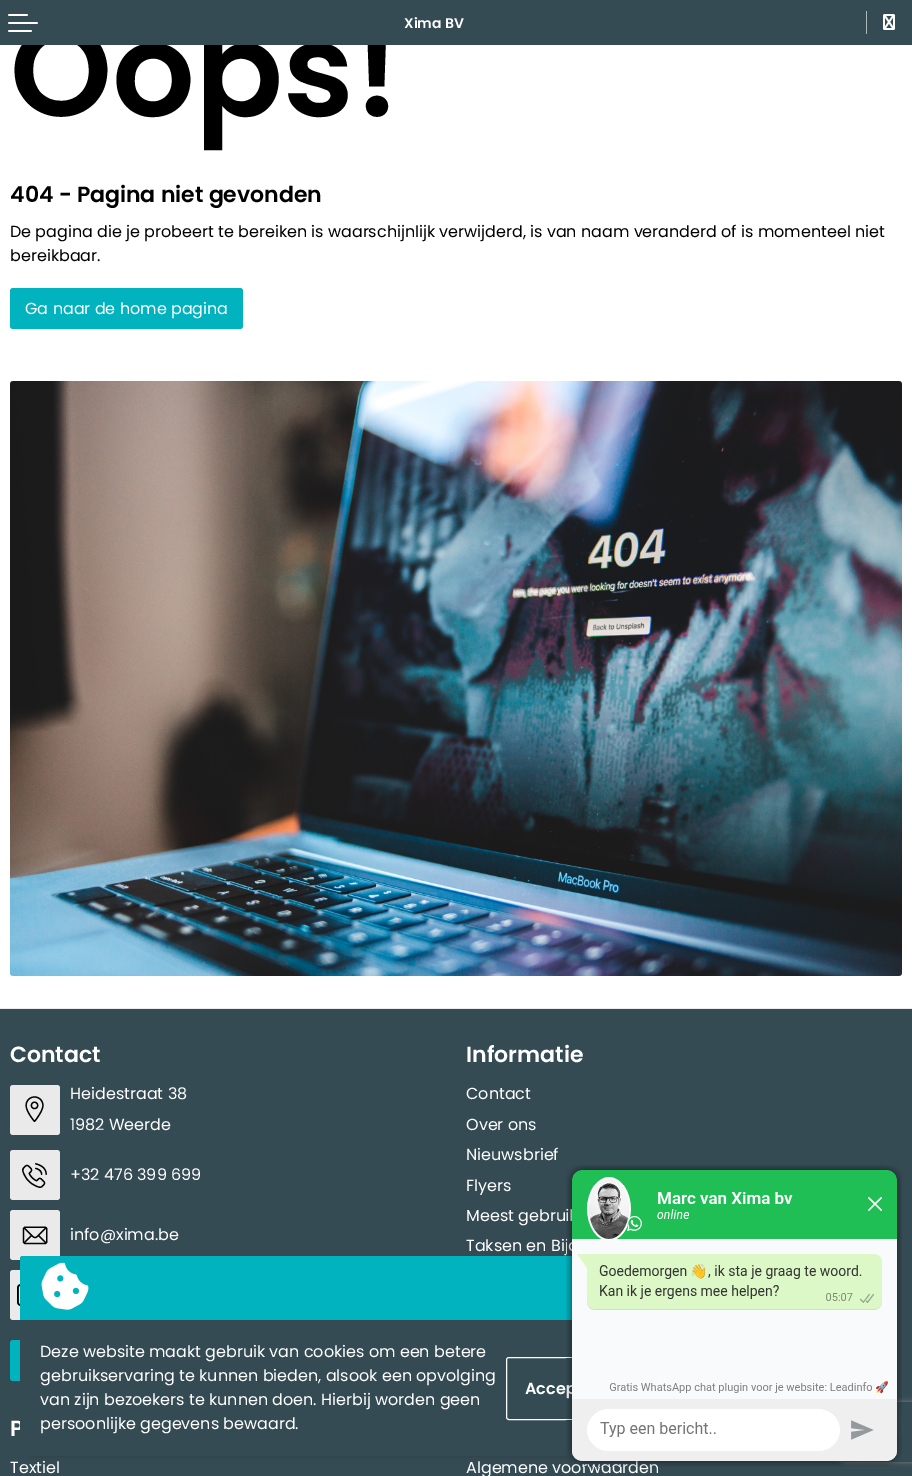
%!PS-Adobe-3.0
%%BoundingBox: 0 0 912 1476
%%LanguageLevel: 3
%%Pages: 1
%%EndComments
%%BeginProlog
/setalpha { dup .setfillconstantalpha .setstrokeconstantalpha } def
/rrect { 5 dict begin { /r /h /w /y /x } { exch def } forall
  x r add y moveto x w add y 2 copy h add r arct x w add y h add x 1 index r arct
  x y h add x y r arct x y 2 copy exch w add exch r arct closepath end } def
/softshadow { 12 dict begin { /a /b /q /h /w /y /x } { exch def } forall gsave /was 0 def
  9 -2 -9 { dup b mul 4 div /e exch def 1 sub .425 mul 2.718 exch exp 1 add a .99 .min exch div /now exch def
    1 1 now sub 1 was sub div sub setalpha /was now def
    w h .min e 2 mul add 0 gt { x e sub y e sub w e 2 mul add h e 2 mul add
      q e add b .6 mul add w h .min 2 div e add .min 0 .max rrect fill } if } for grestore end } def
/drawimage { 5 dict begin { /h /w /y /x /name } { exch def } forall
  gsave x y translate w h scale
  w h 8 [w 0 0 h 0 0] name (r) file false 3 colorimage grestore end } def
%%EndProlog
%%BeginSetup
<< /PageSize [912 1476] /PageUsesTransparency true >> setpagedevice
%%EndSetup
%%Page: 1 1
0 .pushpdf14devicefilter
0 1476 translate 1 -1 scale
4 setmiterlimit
1 setgray
0 0 912 1476 rectfill
0 0.702 0.749 setrgbcolor
10 288 233 41 3 rrect fill
(images/3.raw) 10 381 892 595 drawimage
0.208 0.294 0.329 setrgbcolor
0 1009 912 467 rectfill
0.918 setgray
0 1008 912 1 rectfill
10 1085 50 50 3 rrect fill
(images/4.raw) 25 1096 19 26 drawimage
10 1150 50 50 3 rrect fill
(images/5.raw) 22 1163 25 25 drawimage
10 1210 50 50 3 rrect fill
(images/6.raw) 22 1226 26 19 drawimage
10 1270 50 50 3 rrect fill
(images/7.raw) 17 1284 3 22 drawimage
0 0.702 0.749 setrgbcolor
10 1340 153 41 3 rrect fill
gsave
newpath 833 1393 moveto 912 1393 lineto 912 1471 lineto 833 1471 lineto closepath 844 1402 moveto 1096 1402 lineto 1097 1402 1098 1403 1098 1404 curveto 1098 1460 lineto 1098 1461 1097 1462 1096 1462 curveto 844 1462 lineto 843 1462 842 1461 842 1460 curveto 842 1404 lineto 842 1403 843 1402 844 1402 curveto closepath eoclip newpath
0.502 setgray
842 1402 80 60 2 2.5 1 softshadow
grestore
(images/9.raw) 841 1405 62 57 drawimage
0 setgray
30 1266 690 190 0 3.5 0.15 softshadow
/Poppins-SemiBold [130 0 0 -130 0 0] selectfont
10 116 moveto (Oops!) show
0.208 0.294 0.329 setrgbcolor
0 0 912 45 rectfill
(images/2.raw) 883 14 12 16 drawimage
0.682 0.718 0.733 setrgbcolor
866 11 1 23 rectfill
(images/1.raw) 8 14 30 18 drawimage
/Poppins-SemiBold [14 0 0 -14 0 0] selectfont
1 setgray
404 28 moveto (Xima BV) show
/Poppins-SemiBold [22 0 0 -22 0 0] selectfont
0 setgray
10 202 moveto (404 - Pagina niet gevonden) show
/Poppins-Regular [16 0 0 -16 0 0] selectfont
10 237 moveto (De pagina die je probeert te bereiken is waarschijnlijk verwijderd, is van naam veranderd of is momenteel niet) show
10 261 moveto (bereikbaar.) show
1 setgray
25 314 moveto (Ga naar de home pagina) show
/Poppins-SemiBold [22 0 0 -22 0 0] selectfont
10 1062 moveto (Contact) show
/Poppins-Regular [16 0 0 -16 0 0] selectfont
70 1099 moveto (Heidestraat 38) show
70 1130 moveto (1982 Weerde) show
70 1180 moveto (+32 476 399 699) show
70 1240 moveto (info@xima.be) show
/Poppins-SemiBold [22 0 0 -22 0 0] selectfont
466 1062 moveto (Informatie) show
/Poppins-Regular [16 0 0 -16 0 0] selectfont
466 1099 moveto (Contact) show
466 1130 moveto (Over ons) show
466 1160 moveto (Nieuwsbrief) show
466 1191 moveto (Flyers) show
466 1221 moveto (Meest gebruik) show
466 1251 moveto (Taksen en Bij) show
/Poppins-SemiBold [22 0 0 -22 0 0] selectfont
10 1436 moveto (P) show
/Poppins-Regular [16 0 0 -16 0 0] selectfont
10 1473 moveto (Textiel) show
466 1473 moveto (Algemene voorwaarden) show
0.208 0.294 0.329 setrgbcolor
20 1256 700 200 3 rrect fill
0 0.702 0.749 setrgbcolor
newpath 23 1256 moveto 717 1256 lineto 718.5 1256 720 1257.5 720 1259 curveto 720 1320 lineto 20 1320 lineto 20 1259 lineto 20 1257.5 21.5 1256 23 1256 curveto closepath fill
(images/10.raw) 41 1262 48 48 drawimage
1 setgray
40 1357 moveto (Deze website maakt gebruik van cookies om een betere) show
40 1381 moveto (gebruikservaring te kunnen bieden, alsook een opvolging) show
40 1405 moveto (van zijn bezoekers te kunnen doen. Hierbij worden geen) show
506.5 1357.5 131 62 2.5 rrect stroke
/Poppins-SemiBold [16 0 0 -16 0 0] selectfont
525 1394 moveto (Accep) show
(images/8.raw) 566 1165 336 302 drawimage
/Poppins-Regular [16 0 0 -16 0 0] selectfont
40 1429 moveto (persoonlijke gegevens bewaard.) show
(images/12.raw) 834 1398 66 64 drawimage
(images/11.raw) 566 1165 336 302 drawimage
.poppdf14devicefilter showpage
%%EOF
